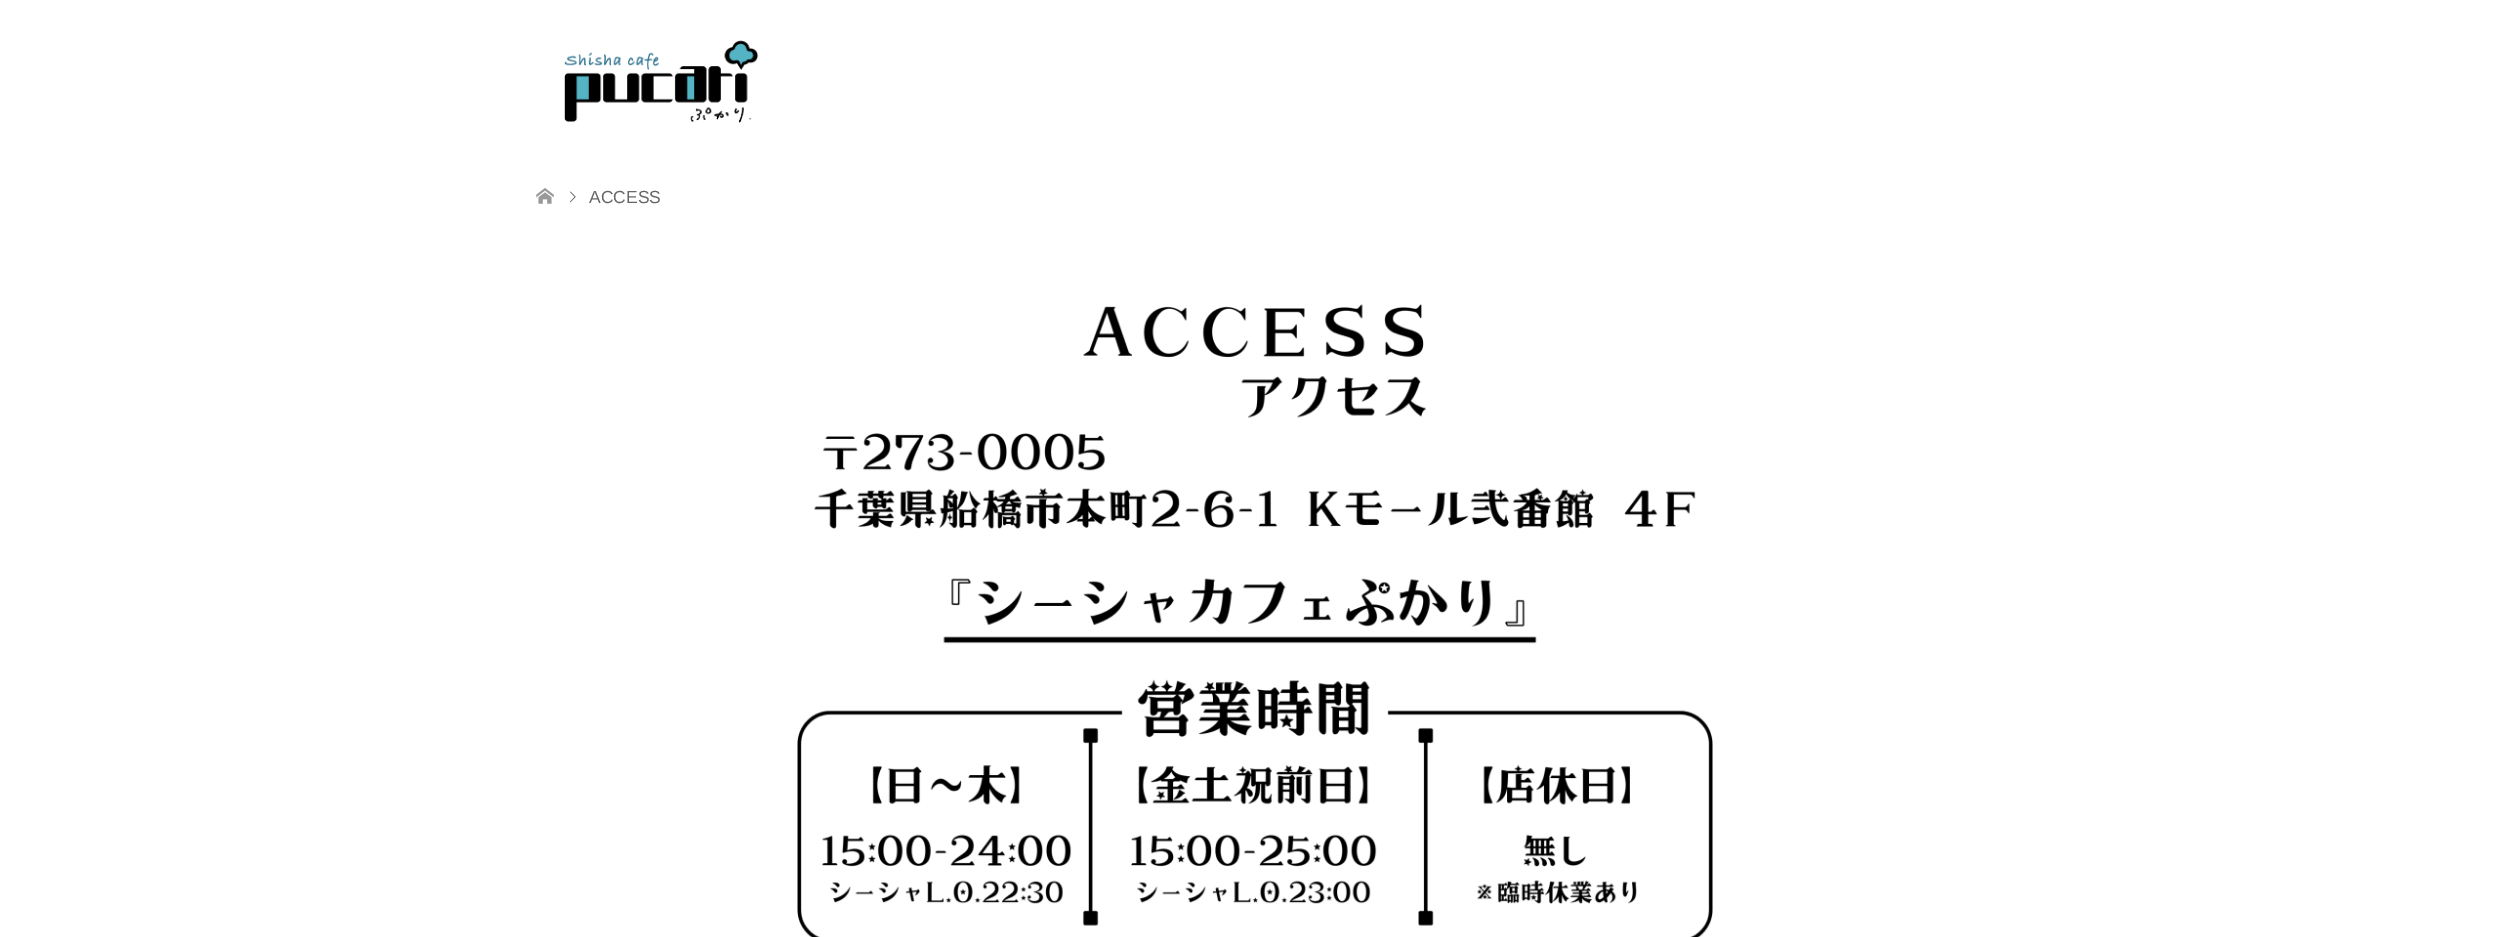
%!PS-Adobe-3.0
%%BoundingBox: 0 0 2508 937
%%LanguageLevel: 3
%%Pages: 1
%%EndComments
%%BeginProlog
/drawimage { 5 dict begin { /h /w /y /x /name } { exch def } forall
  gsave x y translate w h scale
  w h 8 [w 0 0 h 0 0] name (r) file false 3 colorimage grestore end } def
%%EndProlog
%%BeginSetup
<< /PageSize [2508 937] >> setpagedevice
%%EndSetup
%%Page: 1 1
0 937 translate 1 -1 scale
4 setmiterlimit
1 setgray
0 0 2508 937 rectfill
(images/1.raw) 564 40 195 83 drawimage
(images/2.raw) 536 188 18 16 drawimage
(images/3.raw) 570 191 6 12 drawimage
(images/4.raw) 797 304 916 633 drawimage
/LiberationSans-Regular [17.5 0 0 -17.5 0 0] selectfont
0.4 setgray
589 203 moveto (ACCESS) show
showpage
%%EOF
